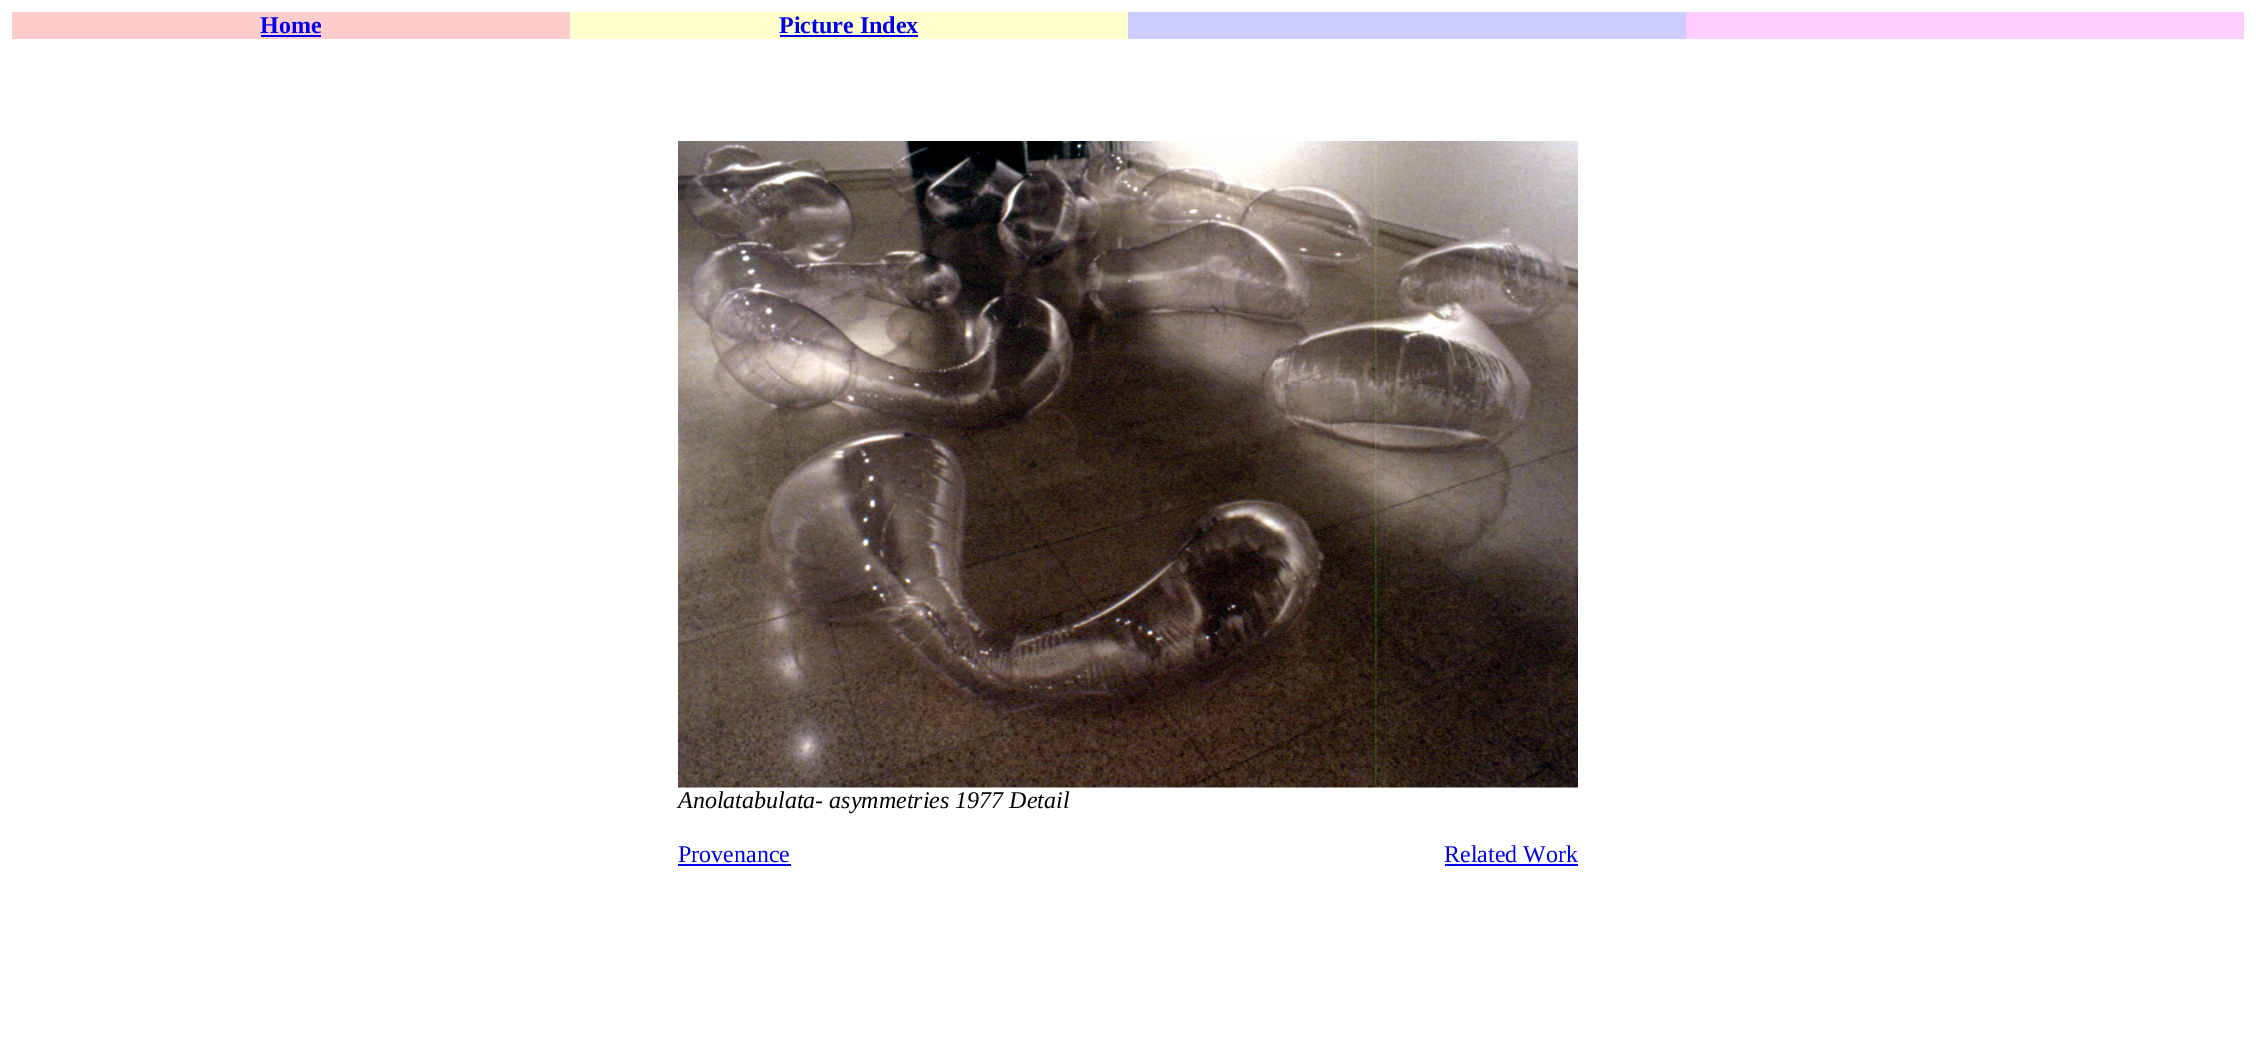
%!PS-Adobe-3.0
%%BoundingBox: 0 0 2256 1053
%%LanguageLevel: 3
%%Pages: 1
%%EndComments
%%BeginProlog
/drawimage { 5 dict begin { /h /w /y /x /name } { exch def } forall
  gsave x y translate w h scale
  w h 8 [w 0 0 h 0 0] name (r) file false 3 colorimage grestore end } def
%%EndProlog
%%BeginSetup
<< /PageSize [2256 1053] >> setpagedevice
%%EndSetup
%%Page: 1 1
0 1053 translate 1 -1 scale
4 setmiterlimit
1 setgray
0 0 2256 1053 rectfill
1 0.8 0.8 setrgbcolor
12 12 558 27 rectfill
0 0 0.933 setrgbcolor
261 35 60 2 rectfill
1 1 0.8 setrgbcolor
570 12 558 27 rectfill
0 0 0.933 setrgbcolor
780 35 138 2 rectfill
0.8 0.8 1 setrgbcolor
1128 12 558 27 rectfill
1 0.8 1 setrgbcolor
1686 12 558 27 rectfill
(images/1.raw) 678 141 900 647 drawimage
0 0 0.933 setrgbcolor
678 864 113 2 rectfill
1445 864 133 2 rectfill
/LiberationSerif-Bold [24 0 0 -24 0 0] selectfont
260 33 moveto (Home) show
779 33 moveto (Picture Index) show
/LiberationSerif-Italic [24 0 0 -24 0 0] selectfont
0 setgray
678 808 moveto (Anolatabulata- asymmetries 1977 Detail) show
/LiberationSerif-Regular [24 0 0 -24 0 0] selectfont
0 0 0.933 setrgbcolor
678 862 moveto (Provenance) show
1444 862 moveto (Related Work) show
showpage
%%EOF
